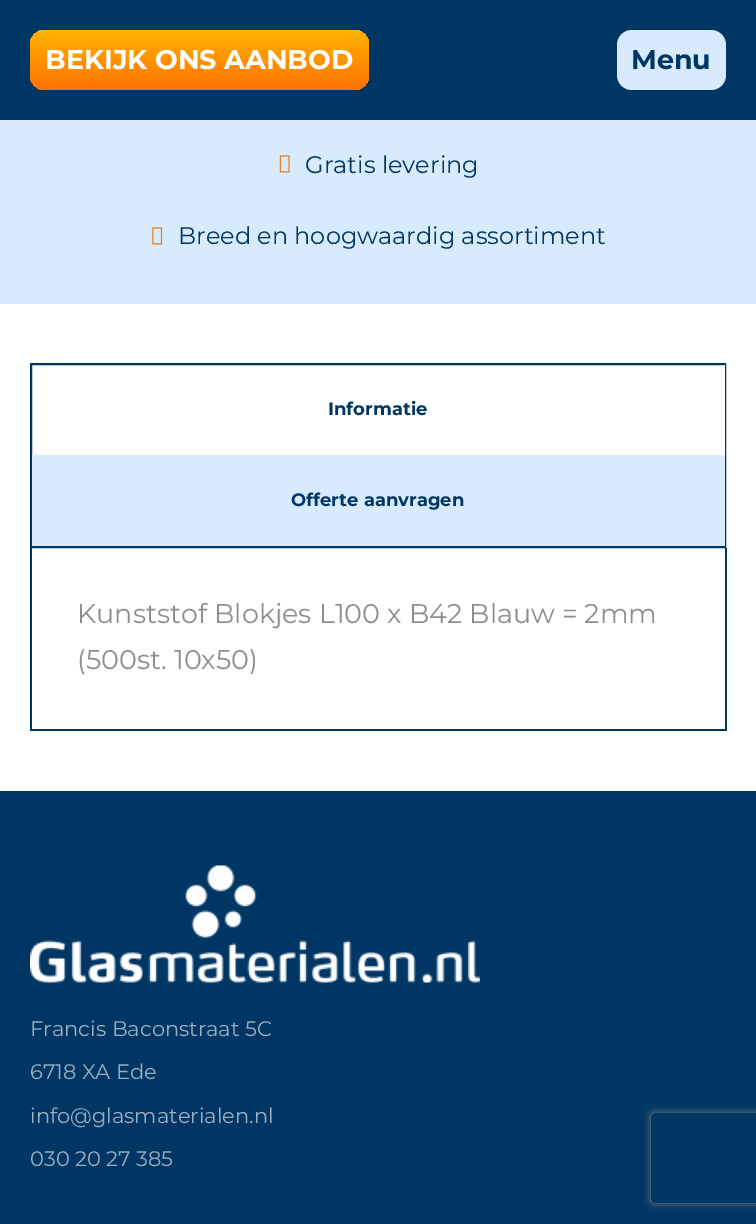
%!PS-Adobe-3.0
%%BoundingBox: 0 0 756 1224
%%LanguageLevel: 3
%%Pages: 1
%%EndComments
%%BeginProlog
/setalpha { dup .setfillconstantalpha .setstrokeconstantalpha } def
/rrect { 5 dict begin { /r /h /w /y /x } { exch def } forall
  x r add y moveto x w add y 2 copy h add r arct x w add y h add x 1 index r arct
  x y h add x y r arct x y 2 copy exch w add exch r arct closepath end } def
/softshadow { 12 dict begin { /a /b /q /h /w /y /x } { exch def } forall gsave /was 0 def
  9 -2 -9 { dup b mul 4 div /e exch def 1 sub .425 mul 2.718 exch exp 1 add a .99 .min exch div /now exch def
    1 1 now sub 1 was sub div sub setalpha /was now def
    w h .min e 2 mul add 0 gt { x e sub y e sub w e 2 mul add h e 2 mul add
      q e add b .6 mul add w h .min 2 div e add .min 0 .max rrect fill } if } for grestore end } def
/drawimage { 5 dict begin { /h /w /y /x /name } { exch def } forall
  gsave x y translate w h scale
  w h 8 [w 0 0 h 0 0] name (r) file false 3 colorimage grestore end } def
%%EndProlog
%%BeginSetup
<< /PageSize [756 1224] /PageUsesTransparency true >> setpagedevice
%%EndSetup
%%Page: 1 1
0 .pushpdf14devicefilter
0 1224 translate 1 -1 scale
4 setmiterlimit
1 setgray
0 0 756 1224 rectfill
0 0.212 0.392 setrgbcolor
0 0 756 120 rectfill
gsave 30 30 339 60 15 rrect clip newpath
<< /ShadingType 2 /ColorSpace /DeviceRGB /Coords [200 30 200 90] /Extend [true true] /Function << /FunctionType 2 /Domain [0 1] /C0 [1 0.702 0] /C1 [1 0.447 0] /N 1 >> >> shfill grestore
0.843 0.922 0.988 setrgbcolor
617 30 109 60 15 rrect fill
0 120 756 184 rectfill
(images/1.raw) 279 155 11 18 drawimage
(images/2.raw) 152 227 11 18 drawimage
0 0.212 0.392 setrgbcolor
2 setlinewidth
31 364 694 183 rectstroke
1 setgray
724 365 1 90 rectfill
0.843 0.922 0.988 setrgbcolor
32 455 693 91 rectfill
0 0.212 0.392 setrgbcolor
725 548 2 183 rectfill
30 729 696 2 rectfill
30 548 2 183 rectfill
0 791 756 433 rectfill
(images/3.raw) 30 865 450 118 drawimage
gsave
newpath 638 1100 moveto 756 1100 lineto 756 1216 lineto 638 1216 lineto closepath 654 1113 moveto 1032 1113 lineto 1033.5 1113 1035 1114.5 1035 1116 curveto 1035 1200 lineto 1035 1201.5 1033.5 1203 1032 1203 curveto 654 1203 lineto 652.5 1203 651 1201.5 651 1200 curveto 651 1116 lineto 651 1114.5 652.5 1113 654 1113 curveto closepath eoclip newpath
0.502 setgray
651 1113 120 90 3 4 1 softshadow
grestore
/Montserrat-Bold [27 0 0 -27 0 0] selectfont
1 setgray
45 69 moveto (BEKIJK ONS AANBOD) show
0 0.212 0.392 setrgbcolor
631 69 moveto (Menu) show
/Montserrat-Regular [24 0 0 -24 0 0] selectfont
305 173 moveto (Gratis levering) show
178 244 moveto (Breed en hoogwaardig assortiment) show
/Montserrat-Bold [18 0 0 -18 0 0] selectfont
328 415 moveto (Informatie) show
291 506 moveto (Offerte aanvragen) show
/Montserrat-Regular [27 0 0 -27 0 0] selectfont
0.541 0.557 0.569 setrgbcolor
77 623 moveto (Kunststof Blokjes L100 x B42 Blauw = 2mm) show
77 669 moveto (\(500st. 10x50\)) show
/Montserrat-Regular [21 0 0 -21 0 0] selectfont
0.6 0.686 0.757 setrgbcolor
30 1036 moveto (Francis Baconstraat 5C) show
30 1079 moveto (6718 XA Ede) show
30 1123 moveto (info@glasmaterialen.nl) show
30 1166 moveto (030 20 27 385) show
.poppdf14devicefilter showpage
%%EOF
